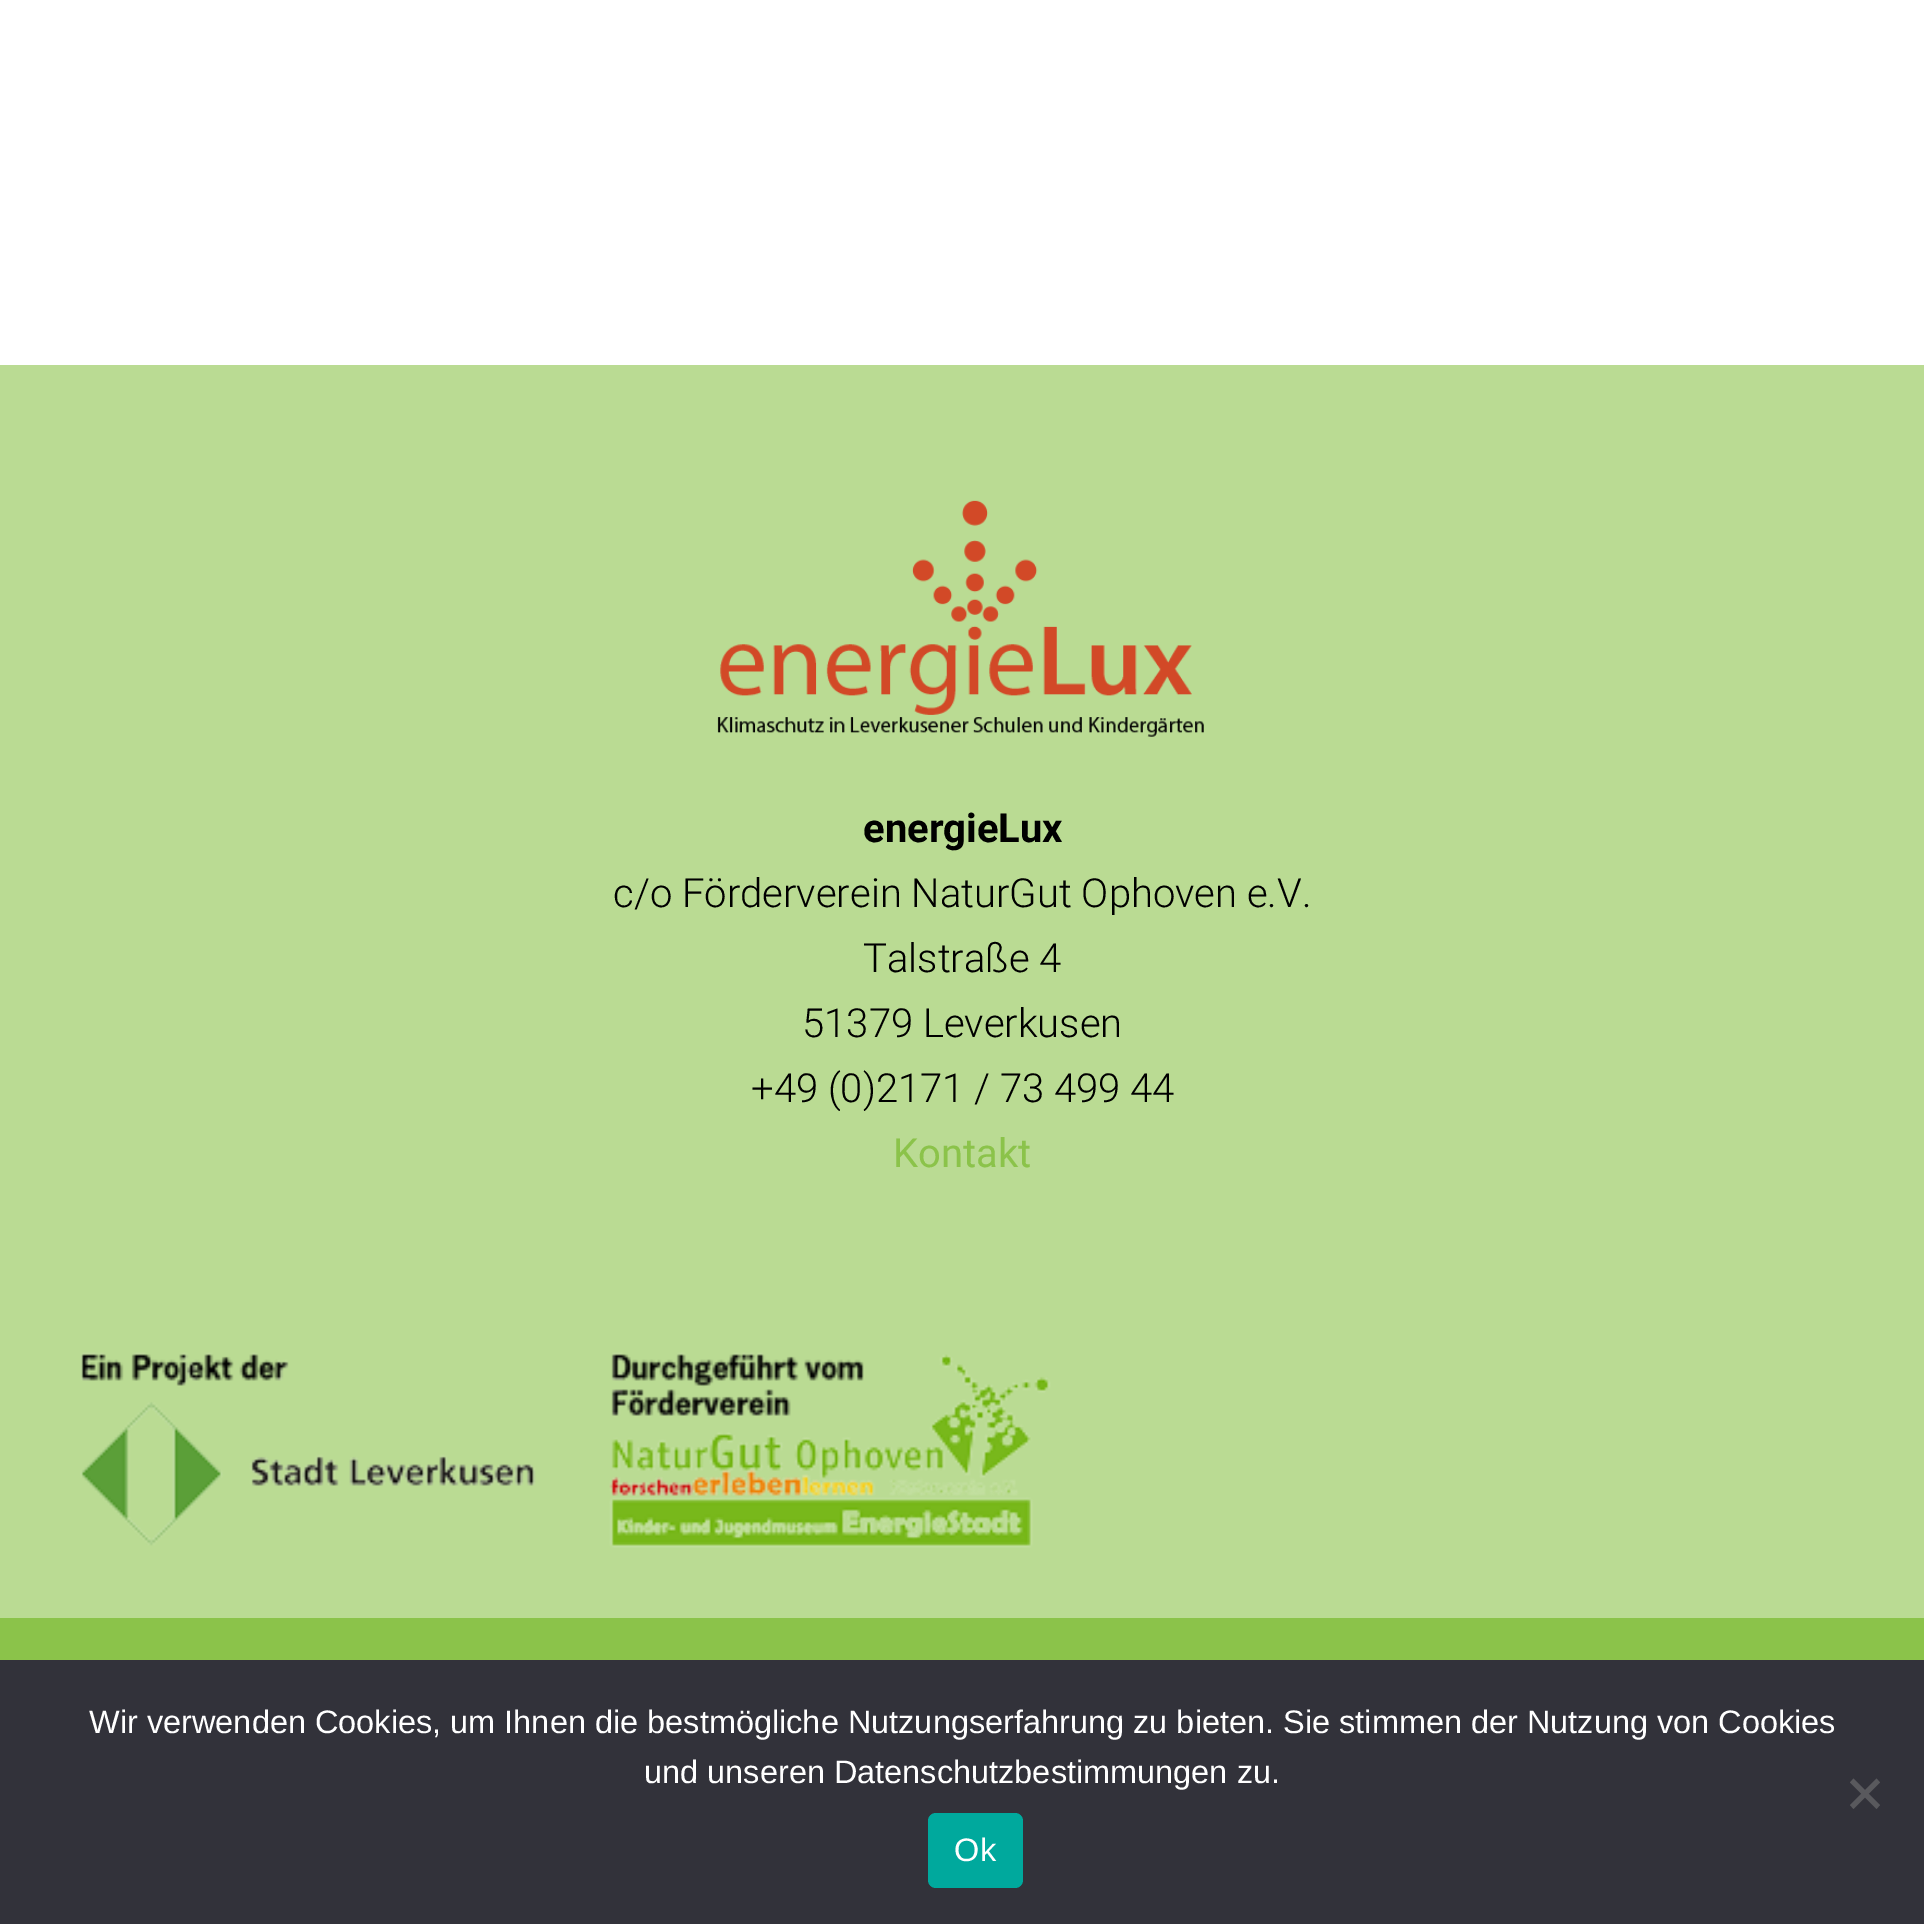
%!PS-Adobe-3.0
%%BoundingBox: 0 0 1924 1924
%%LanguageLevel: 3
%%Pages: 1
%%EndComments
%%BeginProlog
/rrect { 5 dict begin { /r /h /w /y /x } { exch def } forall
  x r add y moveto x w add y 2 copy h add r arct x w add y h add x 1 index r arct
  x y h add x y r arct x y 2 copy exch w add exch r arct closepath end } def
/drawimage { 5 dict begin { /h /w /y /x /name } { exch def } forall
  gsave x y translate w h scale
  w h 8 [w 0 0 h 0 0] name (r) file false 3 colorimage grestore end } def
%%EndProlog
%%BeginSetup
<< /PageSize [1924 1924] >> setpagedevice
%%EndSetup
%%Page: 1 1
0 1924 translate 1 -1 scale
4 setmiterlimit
1 setgray
0 0 1924 1924 rectfill
0.729 0.859 0.576 setrgbcolor
0 365 1924 1253 rectfill
(images/1.raw) 717 500 487 237 drawimage
(images/2.raw) 80 1352 971 196 drawimage
0.545 0.765 0.29 setrgbcolor
0 1618 1924 42 rectfill
0.196 0.196 0.227 setrgbcolor
0 1660 1924 264 rectfill
0.349 0.349 0.365 setrgbcolor
newpath 1876.5 1778.5 moveto 1880 1782.5 lineto 1853.5 1809 lineto 1850 1805 lineto closepath fill
newpath 1850 1782.5 moveto 1853.5 1778.5 lineto 1880 1805 lineto 1876.5 1809 lineto closepath fill
0 0.663 0.616 setrgbcolor
928 1813 95 75 8 rrect fill
/Roboto-Bold [40 0 0 -40 0 0] selectfont
0 setgray
863 842 moveto (energieLux) show
/Roboto-Light [40 0 0 -40 0 0] selectfont
613 907 moveto (c/o Förderverein NaturGut Ophoven e.V.) show
863 972 moveto (Talstraße 4) show
802 1037 moveto (51379 Leverkusen) show
751 1102 moveto (+49 \(0\)2171 / 73 499 44) show
/Roboto-Regular [40 0 0 -40 0 0] selectfont
0.545 0.765 0.29 setrgbcolor
893 1167 moveto (Kontakt) show
/LiberationSans-Regular [32.5 0 0 -32.5 0 0] selectfont
1 setgray
89 1733 moveto (Wir verwenden Cookies, um Ihnen die bestmögliche Nutzungserfahrung zu bieten. Sie stimmen der Nutzung von Cookies) show
644 1783 moveto (und unseren Datenschutzbestimmungen zu.) show
954 1861 moveto 1 0 (Ok) ashow
showpage
%%EOF
